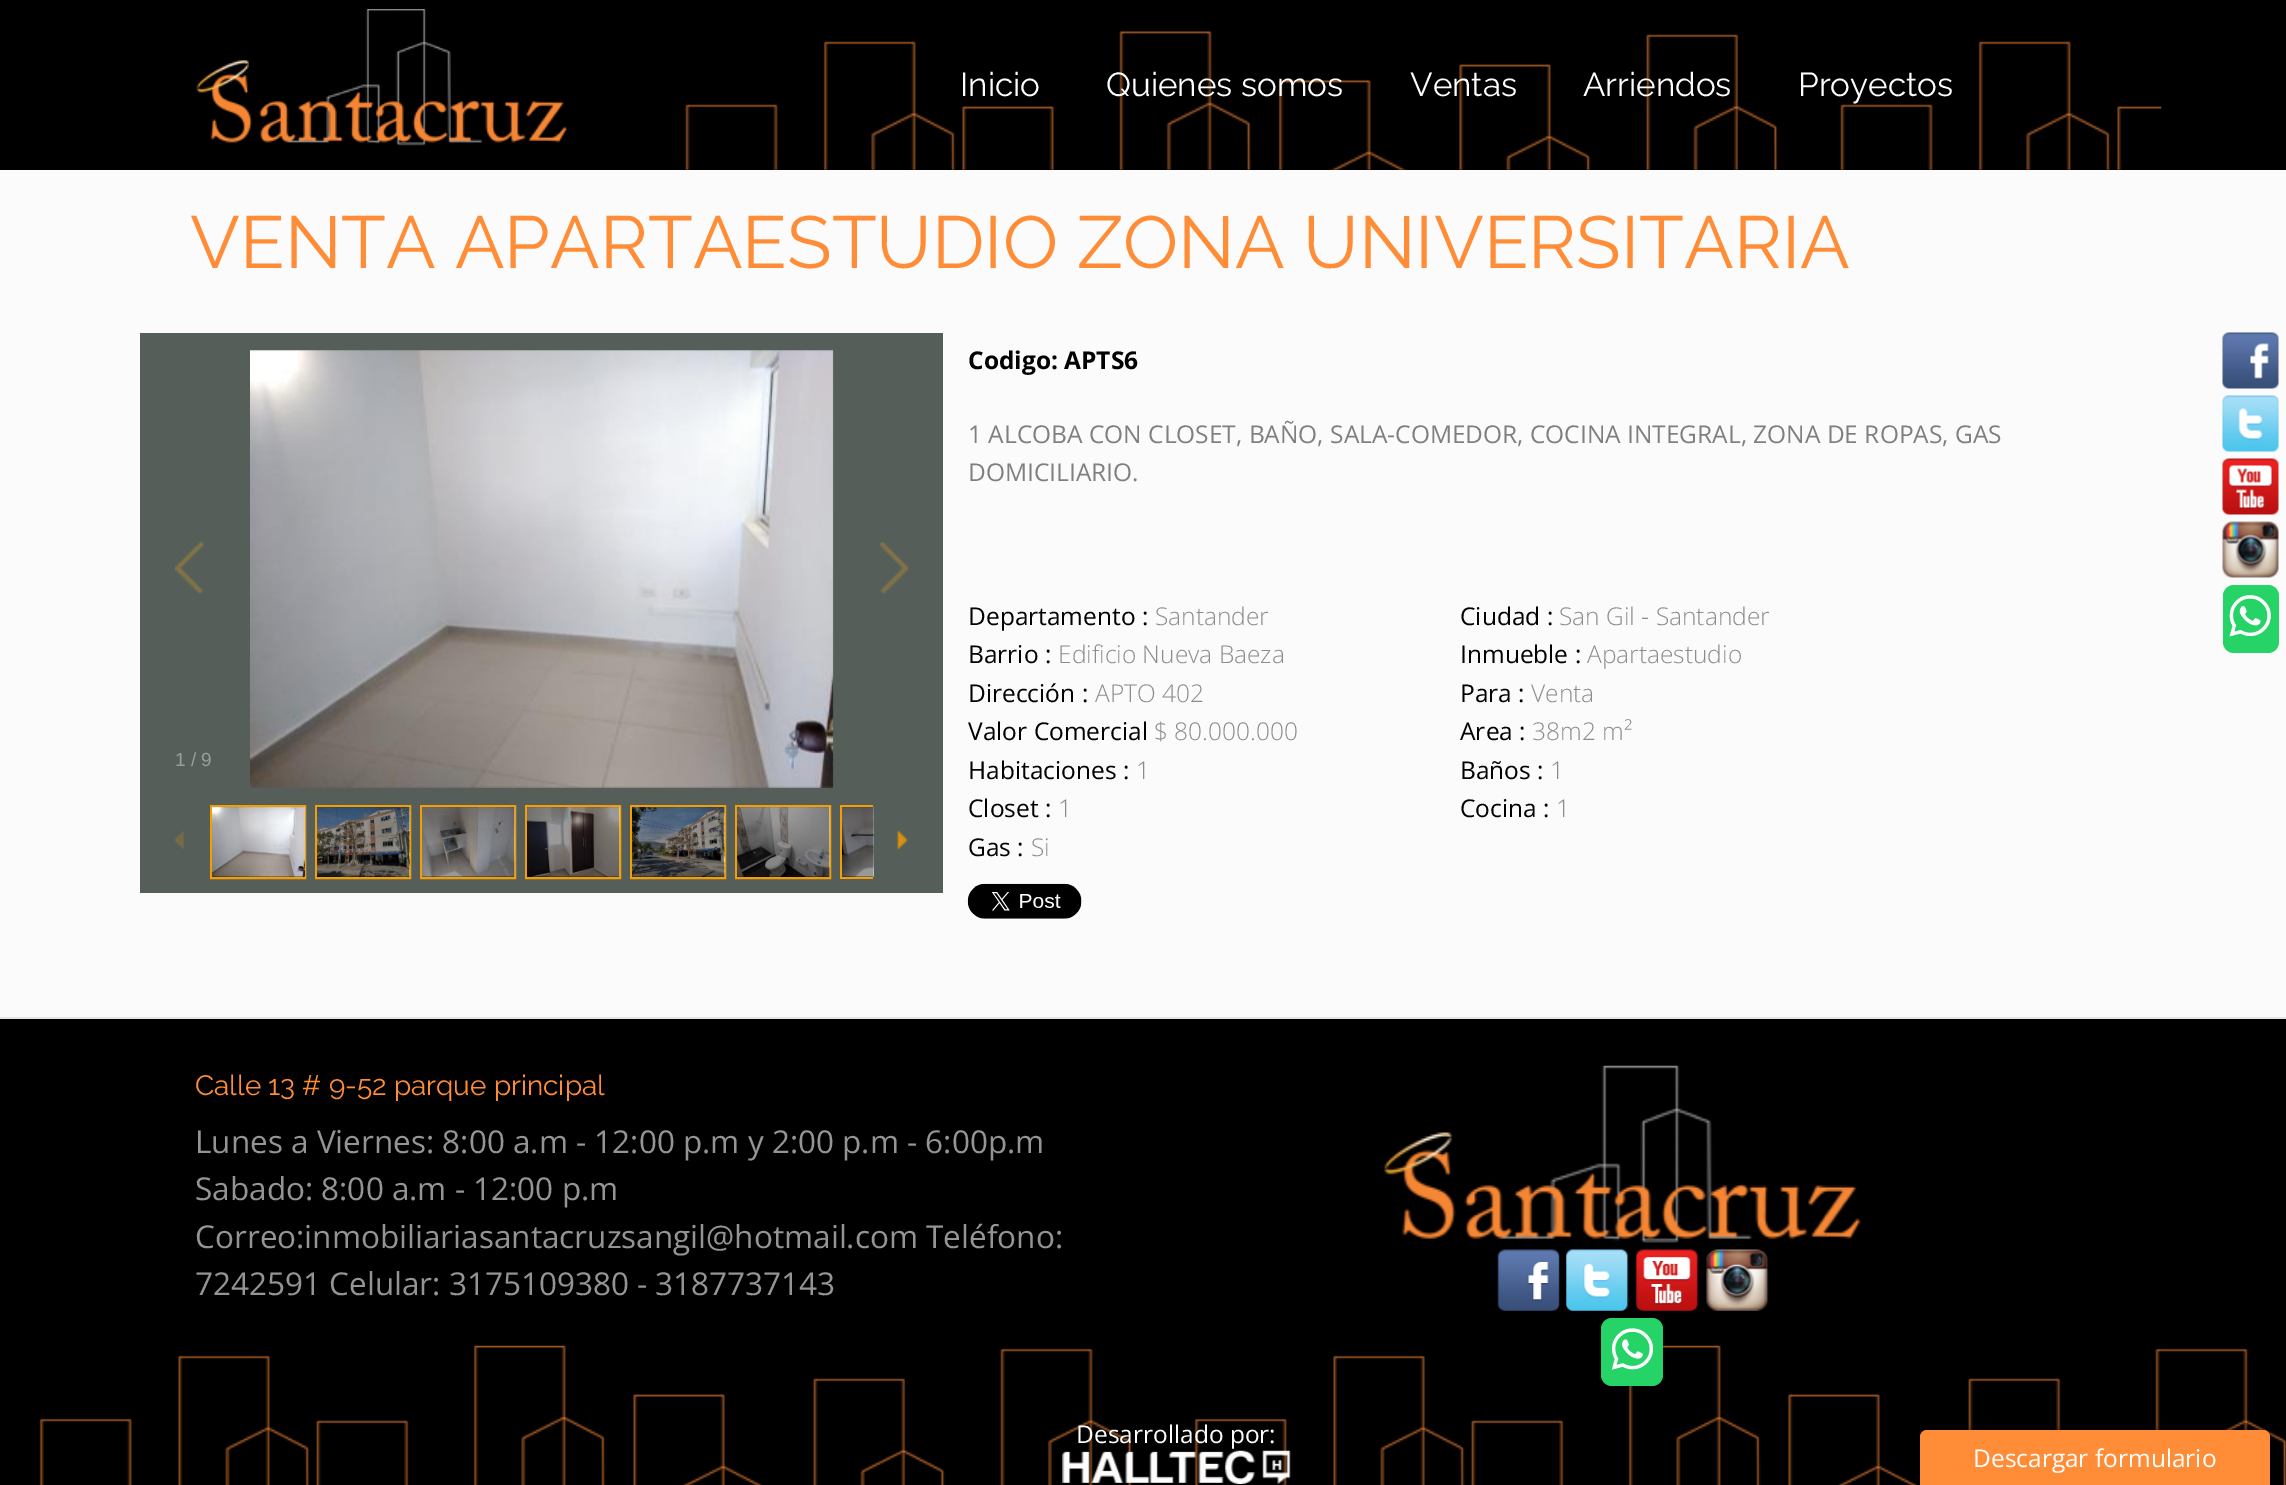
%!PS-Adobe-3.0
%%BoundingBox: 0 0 2286 1485
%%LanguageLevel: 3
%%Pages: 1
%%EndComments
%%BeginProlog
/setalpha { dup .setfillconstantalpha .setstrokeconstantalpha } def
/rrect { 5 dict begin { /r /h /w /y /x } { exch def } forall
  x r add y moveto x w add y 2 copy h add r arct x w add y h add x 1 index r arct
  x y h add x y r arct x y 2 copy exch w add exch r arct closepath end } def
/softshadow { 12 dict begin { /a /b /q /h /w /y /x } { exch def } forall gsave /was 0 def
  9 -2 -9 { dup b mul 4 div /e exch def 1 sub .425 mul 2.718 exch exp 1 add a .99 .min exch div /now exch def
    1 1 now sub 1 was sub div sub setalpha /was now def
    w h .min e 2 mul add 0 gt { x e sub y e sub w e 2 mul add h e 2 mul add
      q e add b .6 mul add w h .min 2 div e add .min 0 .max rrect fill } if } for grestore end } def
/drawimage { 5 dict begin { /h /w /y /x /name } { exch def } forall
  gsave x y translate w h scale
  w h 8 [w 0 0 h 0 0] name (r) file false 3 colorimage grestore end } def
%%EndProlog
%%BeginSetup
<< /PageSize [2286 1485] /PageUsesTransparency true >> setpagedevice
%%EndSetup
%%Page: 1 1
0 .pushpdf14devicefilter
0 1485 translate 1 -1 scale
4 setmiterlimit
0.984 setgray
0 0 2286 1485 rectfill
0 setgray
0 0 2286 170 rectfill
(images/1.raw) 196 9 371 137 drawimage
(images/2.raw) 685 31 1477 139 drawimage
0.333 0.369 0.345 setrgbcolor
140 333 803 560 rectfill
(images/3.raw) 250 350 584 438 drawimage
(images/4.raw) 175 541 29 53 drawimage
(images/5.raw) 879 541 30 53 drawimage
0.957 0.62 0 setrgbcolor
2 setlinewidth
211 806 94 72 rectstroke
(images/6.raw) 212 807 93 70 drawimage
0 setgray
newpath 316 806 moveto 410 806 lineto 410 878 lineto 316 878 lineto closepath gsave fill grestore
0.957 0.62 0 setrgbcolor
stroke
(images/7.raw) 317 807 93 70 drawimage
0 setgray
newpath 421 806 moveto 515 806 lineto 515 878 lineto 421 878 lineto closepath gsave fill grestore
0.957 0.62 0 setrgbcolor
stroke
(images/8.raw) 422 807 93 70 drawimage
0 setgray
newpath 526 806 moveto 620 806 lineto 620 878 lineto 526 878 lineto closepath gsave fill grestore
0.957 0.62 0 setrgbcolor
stroke
(images/9.raw) 527 807 93 70 drawimage
0 setgray
newpath 631 806 moveto 725 806 lineto 725 878 lineto 631 878 lineto closepath gsave fill grestore
0.957 0.62 0 setrgbcolor
stroke
(images/10.raw) 632 807 93 70 drawimage
0 setgray
newpath 736 806 moveto 830 806 lineto 830 878 lineto 736 878 lineto closepath gsave fill grestore
0.957 0.62 0 setrgbcolor
stroke
(images/11.raw) 737 807 93 70 drawimage
0 setgray
842 807 31 70 rectfill
gsave
210 805 663 74 rectclip
0.957 0.62 0 setrgbcolor
841 806 94 72 rectstroke
grestore
(images/12.raw) 842 807 32 70 drawimage
(images/13.raw) 174 831 10 18 drawimage
(images/14.raw) 896 830 12 20 drawimage
(images/15.raw) 967 883 115 36 drawimage
(images/16.raw) 2222 332 57 57 drawimage
(images/17.raw) 2222 395 57 57 drawimage
(images/18.raw) 2222 458 57 57 drawimage
(images/19.raw) 2222 521 57 57 drawimage
0.145 0.827 0.4 setrgbcolor
2223 585 56 68 11 rrect fill
(images/20.raw) 2229 595 42 42 drawimage
0 setgray
0 1019 2286 466 rectfill
0.894 setgray
0 1017 2286 2 rectfill
(images/21.raw) 39 1345 2247 140 drawimage
(images/22.raw) 1384 1065 477 178 drawimage
(images/23.raw) 1497 1249 63 62 drawimage
(images/24.raw) 1566 1249 63 62 drawimage
(images/25.raw) 1636 1249 63 62 drawimage
(images/26.raw) 1706 1249 63 62 drawimage
0.145 0.827 0.4 setrgbcolor
1601 1318 62 68 11 rrect fill
(images/27.raw) 1611 1328 43 42 drawimage
(images/28.raw) 1062 1450 229 34 drawimage
0 setgray
1922 1428 350 56 7 2.5 0.2 softshadow
1 0.553 0.216 setrgbcolor
newpath 1927 1430 moveto 2263 1430 lineto 2267 1430 2270 1433 2270 1437 curveto 2270 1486 lineto 1920 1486 lineto 1920 1437 lineto 1920 1433 1923 1430 1927 1430 curveto closepath fill
/Raleway-Regular [33.25 0 0 -33.25 0 0] selectfont
1 setgray
960 96 moveto (Inicio) show
1106 96 moveto (Quienes somos) show
1410 96 moveto (Ventas) show
1583 96 moveto (Arriendos) show
1798 96 moveto (Proyectos) show
/Raleway-Regular [73.5 0 0 -73.5 0 0] selectfont
1 0.553 0.216 setrgbcolor
190 268 moveto (VENTA APARTAESTUDIO ZONA UNIVERSITARIA) show
/LiberationSans-Regular [19 0 0 -19 0 0] selectfont
0.6 0.62 0.608 setrgbcolor
175 766 moveto (1 / 9) show
/OpenSans-Bold [24.5 0 0 -24.5 0 0] selectfont
0 setgray
968 369 moveto (Codigo: APTS6) show
/OpenSans-Regular [24.5 0 0 -24.5 0 0] selectfont
0.498 setgray
968 443 moveto (1 ALCOBA CON CLOSET, BAÑO, SALA-COMEDOR, COCINA INTEGRAL, ZONA DE ROPAS, GAS) show
968 481 moveto (DOMICILIARIO.) show
0 setgray
968 625 moveto (Departamento :) show
/OpenSans-Light [24.5 0 0 -24.5 0 0] selectfont
0.557 0.545 0.545 setrgbcolor
1155 625 moveto (Santander) show
/OpenSans-Regular [24.5 0 0 -24.5 0 0] selectfont
0 setgray
1460 625 moveto (Ciudad :) show
/OpenSans-Light [24.5 0 0 -24.5 0 0] selectfont
0.557 0.545 0.545 setrgbcolor
1559 625 moveto (San Gil - Santander) show
/OpenSans-Regular [24.5 0 0 -24.5 0 0] selectfont
0 setgray
968 663 moveto (Barrio :) show
/OpenSans-Light [24.5 0 0 -24.5 0 0] selectfont
0.557 0.545 0.545 setrgbcolor
1058 663 moveto (Edificio Nueva Baeza) show
/OpenSans-Regular [24.5 0 0 -24.5 0 0] selectfont
0 setgray
1460 663 moveto (Inmueble :) show
/OpenSans-Light [24.5 0 0 -24.5 0 0] selectfont
0.557 0.545 0.545 setrgbcolor
1587 663 moveto (Apartaestudio) show
/OpenSans-Regular [24.5 0 0 -24.5 0 0] selectfont
0 setgray
968 702 moveto (Dirección :) show
/OpenSans-Light [24.5 0 0 -24.5 0 0] selectfont
0.557 0.545 0.545 setrgbcolor
1095 702 moveto (APTO 402) show
/OpenSans-Regular [24.5 0 0 -24.5 0 0] selectfont
0 setgray
1460 702 moveto (Para :) show
/OpenSans-Light [24.5 0 0 -24.5 0 0] selectfont
0.557 0.545 0.545 setrgbcolor
1531 702 moveto (Venta) show
/OpenSans-Regular [24.5 0 0 -24.5 0 0] selectfont
0 setgray
968 740 moveto (Valor Comercial) show
/OpenSans-Light [24.5 0 0 -24.5 0 0] selectfont
0.557 0.545 0.545 setrgbcolor
1154 740 moveto ($ 80.000.000) show
/OpenSans-Regular [24.5 0 0 -24.5 0 0] selectfont
0 setgray
1460 740 moveto (Area :) show
/OpenSans-Light [24.5 0 0 -24.5 0 0] selectfont
0.557 0.545 0.545 setrgbcolor
1532 740 moveto (38m2 m²) show
/OpenSans-Regular [24.5 0 0 -24.5 0 0] selectfont
0 setgray
968 779 moveto (Habitaciones :) show
/OpenSans-Light [24.5 0 0 -24.5 0 0] selectfont
0.557 0.545 0.545 setrgbcolor
1136 779 moveto (1) show
/OpenSans-Regular [24.5 0 0 -24.5 0 0] selectfont
0 setgray
1460 779 moveto (Baños :) show
/OpenSans-Light [24.5 0 0 -24.5 0 0] selectfont
0.557 0.545 0.545 setrgbcolor
1550 779 moveto (1) show
/OpenSans-Regular [24.5 0 0 -24.5 0 0] selectfont
0 setgray
968 817 moveto (Closet :) show
/OpenSans-Light [24.5 0 0 -24.5 0 0] selectfont
0.557 0.545 0.545 setrgbcolor
1058 817 moveto (1) show
/OpenSans-Regular [24.5 0 0 -24.5 0 0] selectfont
0 setgray
1460 817 moveto (Cocina :) show
/OpenSans-Light [24.5 0 0 -24.5 0 0] selectfont
0.557 0.545 0.545 setrgbcolor
1556 817 moveto (1) show
/OpenSans-Regular [24.5 0 0 -24.5 0 0] selectfont
0 setgray
968 856 moveto (Gas :) show
/OpenSans-Light [24.5 0 0 -24.5 0 0] selectfont
0.557 0.545 0.545 setrgbcolor
1031 856 moveto (Si) show
/Raleway-Regular [28 0 0 -28 0 0] selectfont
1 0.553 0.216 setrgbcolor
195 1095 moveto (Calle 13 # 9-52 parque principal) show
/OpenSans-Regular [31.5 0 0 -31.5 0 0] selectfont
0.58 setgray
195 1153 moveto (Lunes a Viernes: 8:00 a.m - 12:00 p.m y 2:00 p.m - 6:00p.m) show
195 1200 moveto (Sabado: 8:00 a.m - 12:00 p.m) show
195 1248 moveto (Correo:inmobiliariasantacruzsangil@hotmail.com Teléfono:) show
195 1295 moveto (7242591 Celular: 3175109380 - 3187737143) show
/OpenSans-Regular [24.5 0 0 -24.5 0 0] selectfont
1 setgray
1076 1443 moveto (Desarrollado por:) show
1973 1467 moveto (Descargar formulario) show
.poppdf14devicefilter showpage
%%EOF
